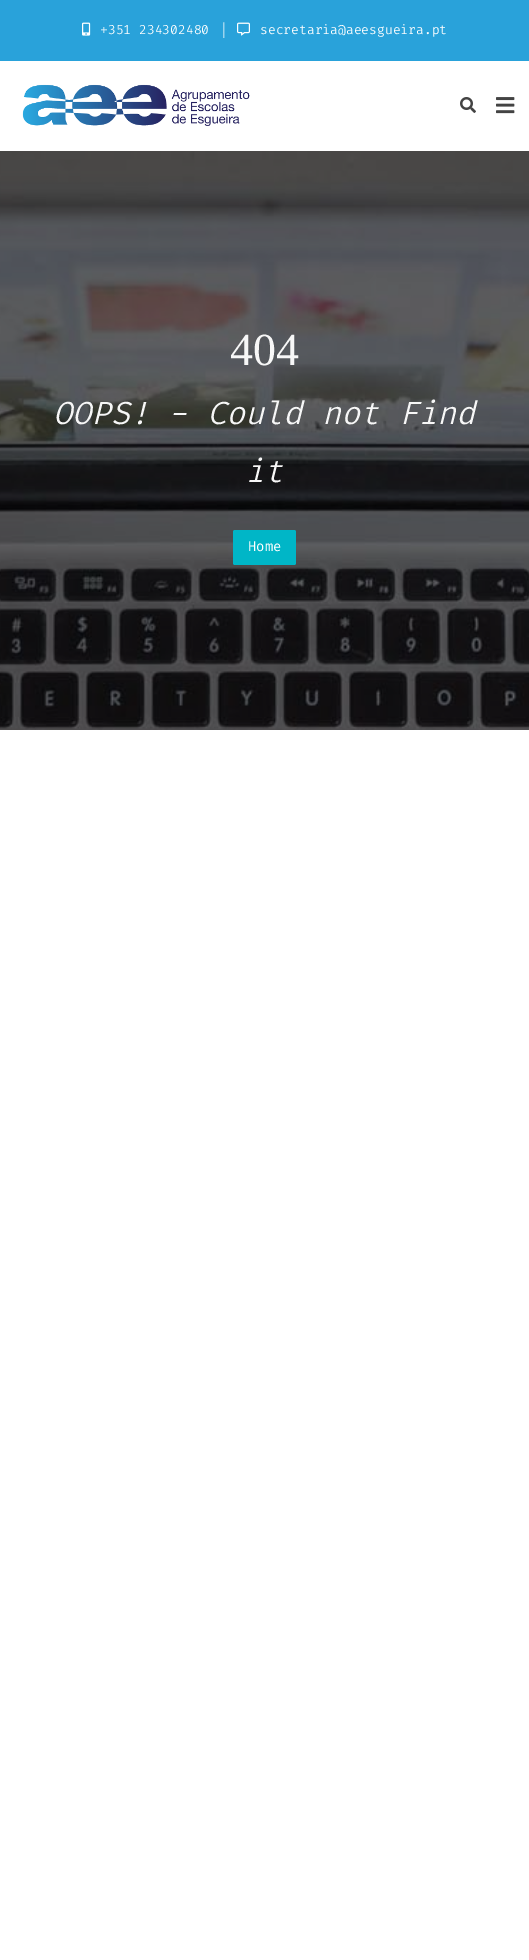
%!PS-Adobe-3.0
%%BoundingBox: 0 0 529 1960
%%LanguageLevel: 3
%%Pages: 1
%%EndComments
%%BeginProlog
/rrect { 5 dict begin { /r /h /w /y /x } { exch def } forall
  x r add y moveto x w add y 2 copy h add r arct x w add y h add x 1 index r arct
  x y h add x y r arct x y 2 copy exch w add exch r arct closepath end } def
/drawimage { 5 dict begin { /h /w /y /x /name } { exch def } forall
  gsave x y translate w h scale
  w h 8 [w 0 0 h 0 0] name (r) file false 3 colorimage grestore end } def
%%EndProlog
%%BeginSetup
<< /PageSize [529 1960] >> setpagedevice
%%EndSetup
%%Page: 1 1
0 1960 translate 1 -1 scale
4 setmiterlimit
1 setgray
0 0 529 1960 rectfill
0.161 0.635 0.855 setrgbcolor
0 0 529 61 rectfill
(images/1.raw) 82 22 9 14 drawimage
(images/2.raw) 237 22 13 14 drawimage
(images/3.raw) 22 84 228 42 drawimage
(images/4.raw) 460 97 16 16 drawimage
(images/5.raw) 496 97 19 17 drawimage
(images/6.raw) 0 151 529 579 drawimage
0 0.714 0.78 setrgbcolor
233 530 63 35 2 rrect fill
/FiraCode-Light [13 0 0 -13 0 0] selectfont
1 setgray
100 34 moveto (+351 234302480) show
220 34 moveto (|) show
260 34 moveto (secretaria@aeesgueira.pt) show
/LiberationSerif-Regular [46 0 0 -46 0 0] selectfont
0.969 setgray
230 365 moveto (404) show
/FiraCode-LightItalic [32 0 0 -32 0 0] selectfont
53 424 moveto (OOPS! - Could not Find) show
245 482 moveto (it) show
/FiraCode-Regular [14 0 0 -14 0 0] selectfont
1 setgray
248 551 moveto (Home) show
showpage
%%EOF
